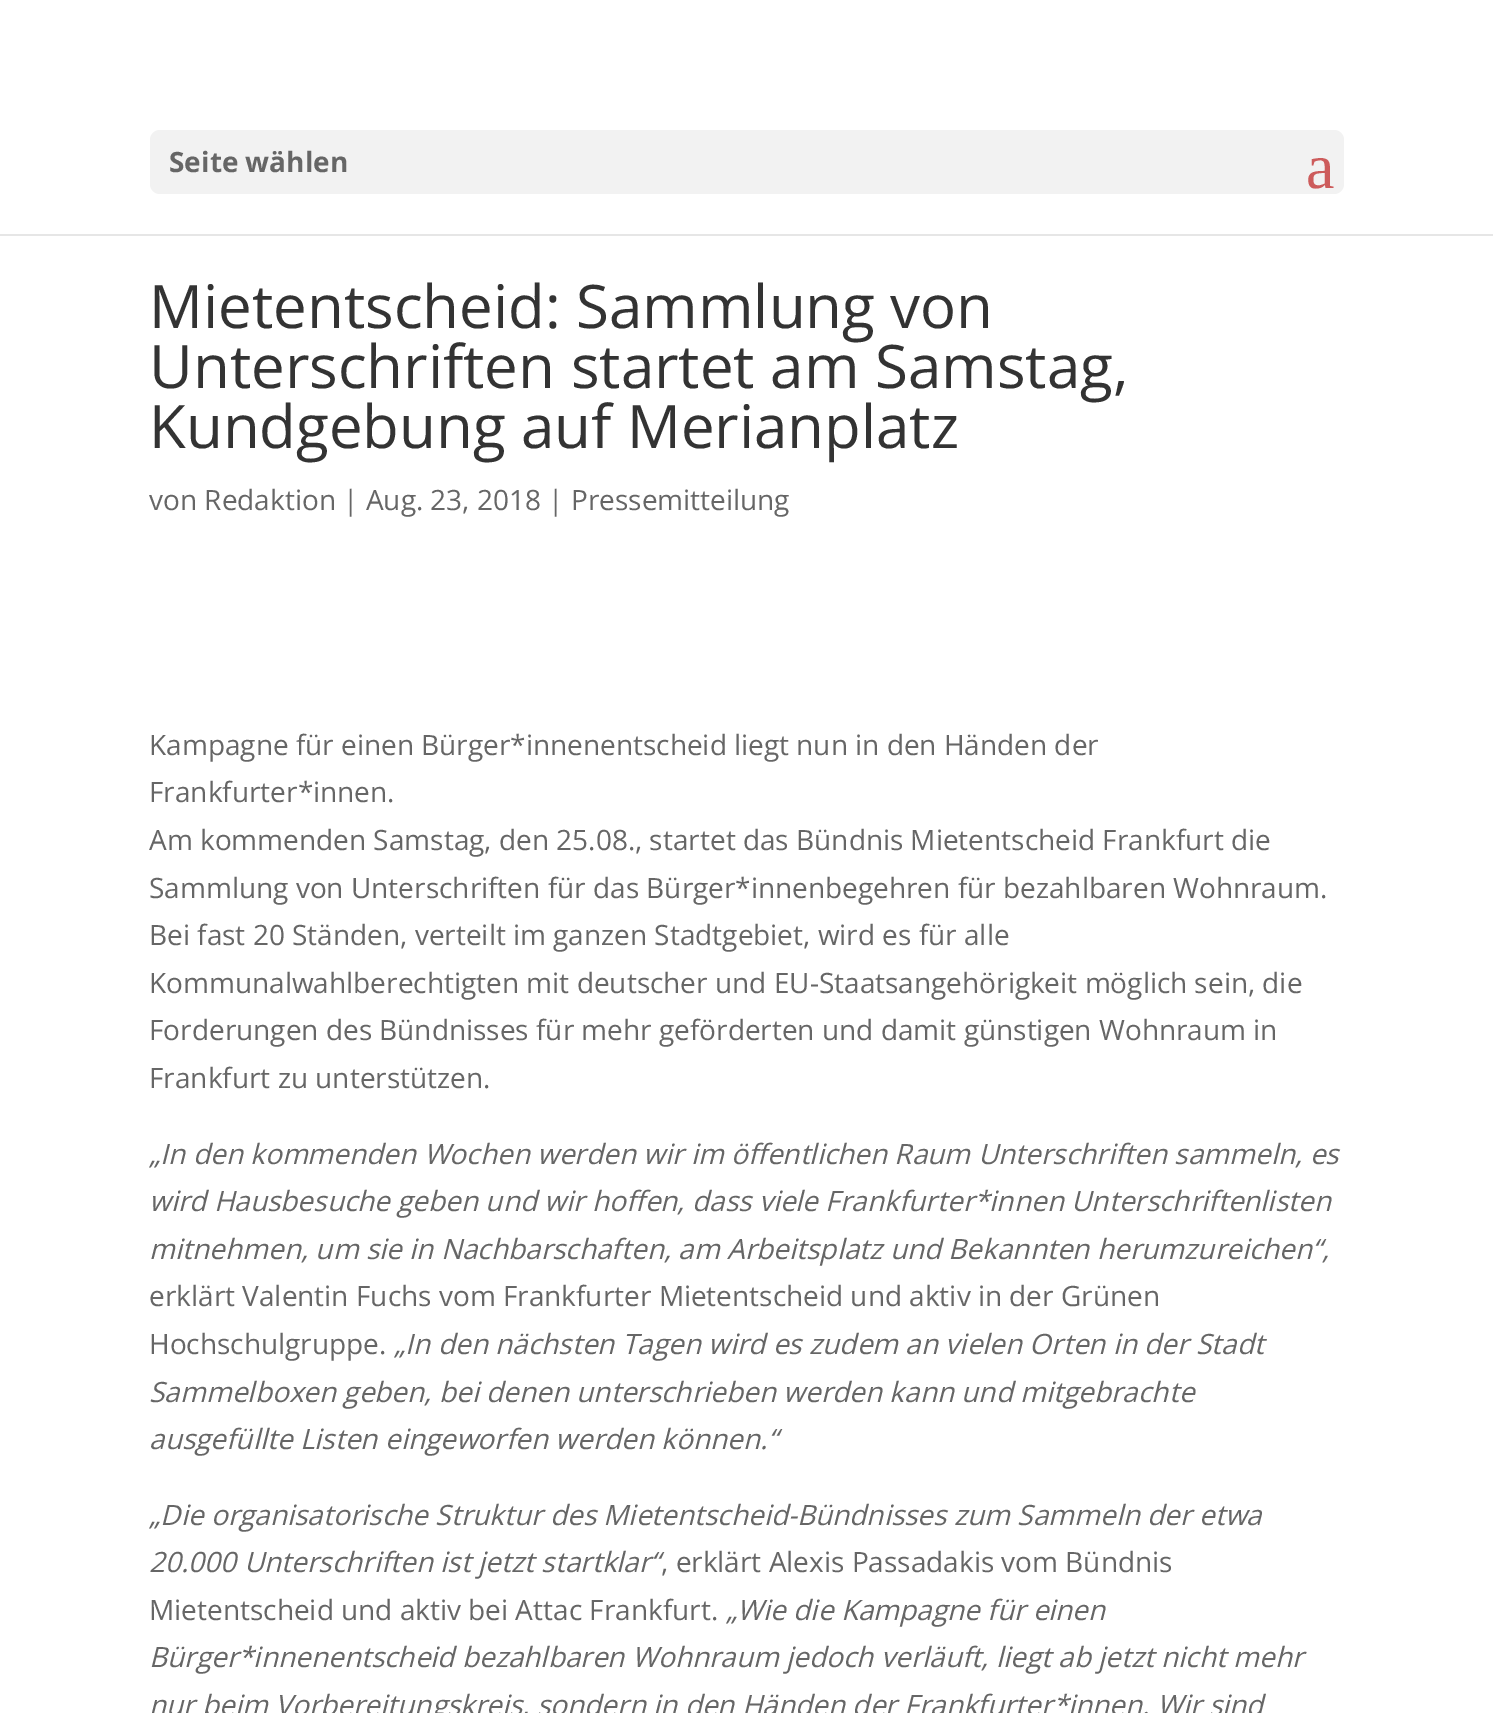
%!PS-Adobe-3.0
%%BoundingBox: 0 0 1493 1713
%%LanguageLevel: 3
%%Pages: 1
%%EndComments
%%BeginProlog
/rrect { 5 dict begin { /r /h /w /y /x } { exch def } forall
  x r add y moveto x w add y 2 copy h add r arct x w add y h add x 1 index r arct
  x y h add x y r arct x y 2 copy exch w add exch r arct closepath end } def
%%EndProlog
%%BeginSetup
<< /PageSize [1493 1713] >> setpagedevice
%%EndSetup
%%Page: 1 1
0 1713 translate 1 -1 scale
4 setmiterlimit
1 setgray
0 0 1493 1713 rectfill
0.902 setgray
0 234 1493 2 rectfill
0.949 setgray
150 130 1194 64 10 rrect fill
/OpenSans-Bold [28 0 0 -28 0 0] selectfont
0.4 setgray
169 172 moveto (Seite wählen) show
/LiberationSerif-Regular [64 0 0 -64 0 0] selectfont
0.804 0.361 0.361 setrgbcolor
1306 188 moveto (a) show
/OpenSans-Regular [60 0 0 -60 0 0] selectfont
0.2 setgray
149 328 moveto (Mietentscheid: Sammlung von) show
149 388 moveto (Unterschriften startet am Samstag,) show
149 448 moveto (Kundgebung auf Merianplatz) show
/OpenSans-Regular [28 0 0 -28 0 0] selectfont
0.4 setgray
149 510 moveto (von Redaktion | Aug. 23, 2018 | Pressemitteilung) show
149 755 moveto (Kampagne für einen Bürger*innenentscheid liegt nun in den Händen der) show
149 802 moveto (Frankfurter*innen.) show
149 850 moveto (Am kommenden Samstag, den 25.08., startet das Bündnis Mietentscheid Frankfurt die) show
149 898 moveto (Sammlung von Unterschriften für das Bürger*innenbegehren für bezahlbaren Wohnraum.) show
149 945 moveto (Bei fast 20 Ständen, verteilt im ganzen Stadtgebiet, wird es für alle) show
149 993 moveto (Kommunalwahlberechtigten mit deutscher und EU-Staatsangehörigkeit möglich sein, die) show
149 1040 moveto (Forderungen des Bündnisses für mehr geförderten und damit günstigen Wohnraum in) show
149 1088 moveto (Frankfurt zu unterstützen.) show
/OpenSans-Italic [28 0 0 -28 0 0] selectfont
149 1164 moveto („In den kommenden Wochen werden wir im öffentlichen Raum Unterschriften sammeln, es) show
149 1211 moveto (wird Hausbesuche geben und wir hoffen, dass viele Frankfurter*innen Unterschriftenlisten) show
149 1259 moveto (mitnehmen, um sie in Nachbarschaften, am Arbeitsplatz und Bekannten herumzureichen“,) show
/OpenSans-Regular [28 0 0 -28 0 0] selectfont
149 1306 moveto (erklärt Valentin Fuchs vom Frankfurter Mietentscheid und aktiv in der Grünen) show
149 1354 moveto (Hochschulgruppe.) show
/OpenSans-Italic [28 0 0 -28 0 0] selectfont
394 1354 moveto („In den nächsten Tagen wird es zudem an vielen Orten in der Stadt) show
149 1402 moveto (Sammelboxen geben, bei denen unterschrieben werden kann und mitgebrachte) show
149 1449 moveto (ausgefüllte Listen eingeworfen werden können.“) show
149 1525 moveto („Die organisatorische Struktur des Mietentscheid-Bündnisses zum Sammeln der etwa) show
149 1572 moveto (20.000 Unterschriften ist jetzt startklar“) show
/OpenSans-Regular [28 0 0 -28 0 0] selectfont
661 1572 moveto (, erklärt Alexis Passadakis vom Bündnis) show
149 1620 moveto (Mietentscheid und aktiv bei Attac Frankfurt.) show
/OpenSans-Italic [28 0 0 -28 0 0] selectfont
726 1620 moveto („Wie die Kampagne für einen) show
149 1667 moveto (Bürger*innenentscheid bezahlbaren Wohnraum jedoch verläuft, liegt ab jetzt nicht mehr) show
149 1715 moveto (nur beim Vorbereitungskreis, sondern in den Händen der Frankfurter*innen. Wir sind) show
showpage
%%EOF
